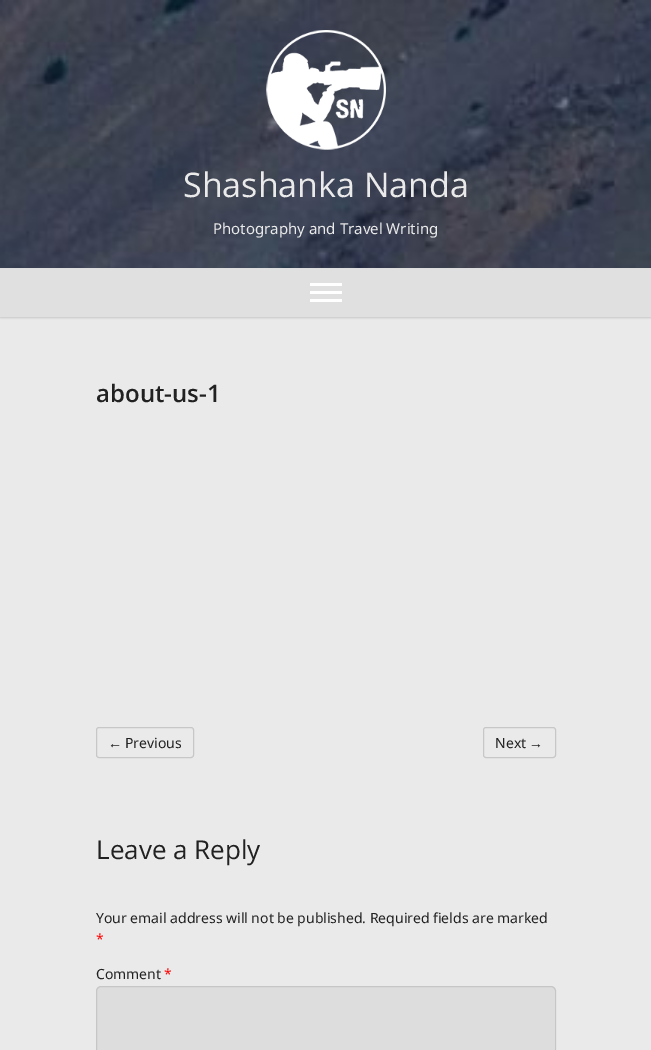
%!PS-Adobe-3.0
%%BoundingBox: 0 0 651 1050
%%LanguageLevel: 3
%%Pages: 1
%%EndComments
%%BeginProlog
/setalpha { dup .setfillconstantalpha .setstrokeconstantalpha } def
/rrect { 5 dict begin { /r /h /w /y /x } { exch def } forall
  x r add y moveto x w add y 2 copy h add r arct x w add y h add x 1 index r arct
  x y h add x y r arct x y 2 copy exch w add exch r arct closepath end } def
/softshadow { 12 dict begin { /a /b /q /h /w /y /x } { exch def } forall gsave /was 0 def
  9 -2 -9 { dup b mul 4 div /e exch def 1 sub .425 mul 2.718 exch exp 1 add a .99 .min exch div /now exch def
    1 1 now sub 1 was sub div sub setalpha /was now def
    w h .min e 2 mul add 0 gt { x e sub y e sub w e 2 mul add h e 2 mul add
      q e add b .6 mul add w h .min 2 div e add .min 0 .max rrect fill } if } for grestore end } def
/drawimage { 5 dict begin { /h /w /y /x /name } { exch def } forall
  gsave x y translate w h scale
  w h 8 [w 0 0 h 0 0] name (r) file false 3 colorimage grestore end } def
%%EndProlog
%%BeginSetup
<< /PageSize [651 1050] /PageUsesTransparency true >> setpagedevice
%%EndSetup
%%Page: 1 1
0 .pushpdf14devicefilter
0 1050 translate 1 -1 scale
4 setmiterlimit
0.918 setgray
0 0 651 1050 rectfill
(images/1.raw) 0 0 651 268 drawimage
(images/2.raw) 266 30 120 120 drawimage
0 setgray
0 269 651 49 0 1 0.15 softshadow
0.878 setgray
0 269 651 48 rectfill
1 setgray
310 283 32 3 rectfill
310 291 32 3 rectfill
310 299 32 3 rectfill
0.78 setgray
96.5 727.5 97 30 2.5 rrect stroke
483.5 727.5 72 30 2.5 rrect stroke
0.867 setgray
96 986 460 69 5 rrect fill
0.1 setalpha
0 setgray
96.5 986.5 459 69 4.5 rrect stroke
/OpenSans-Regular [34 0 0 -34 0 0] selectfont
1 setalpha
0.918 setgray
183 197 moveto (Shashanka Nanda) show
/NotoSans-Regular [15 0 0 -15 0 0] selectfont
213 234 moveto (Photography and Travel Writing) show
/OpenSans-SemiBold [24 0 0 -24 0 0] selectfont
0.129 setgray
96 402 moveto (about-us-1) show
/LiberationSans-Regular [14 0 0 -14 0 0] selectfont
108 748 moveto (←) show
/NotoSans-Regular [14 0 0 -14 0 0] selectfont
125 748 moveto (Previous) show
495 748 moveto (Next) show
/LiberationSans-Regular [14 0 0 -14 0 0] selectfont
529 748 moveto (→) show
/OpenSans-Regular [26 0 0 -26 0 0] selectfont
96 859 moveto (Leave a Reply) show
/NotoSans-Regular [14 0 0 -14 0 0] selectfont
96 923 moveto (Your email address will not be published. Required fields are marked) show
1 0 0 setrgbcolor
96 944 moveto (*) show
0.129 setgray
96 979 moveto (Comment) show
1 0 0 setrgbcolor
164 979 moveto (*) show
.poppdf14devicefilter showpage
%%EOF
